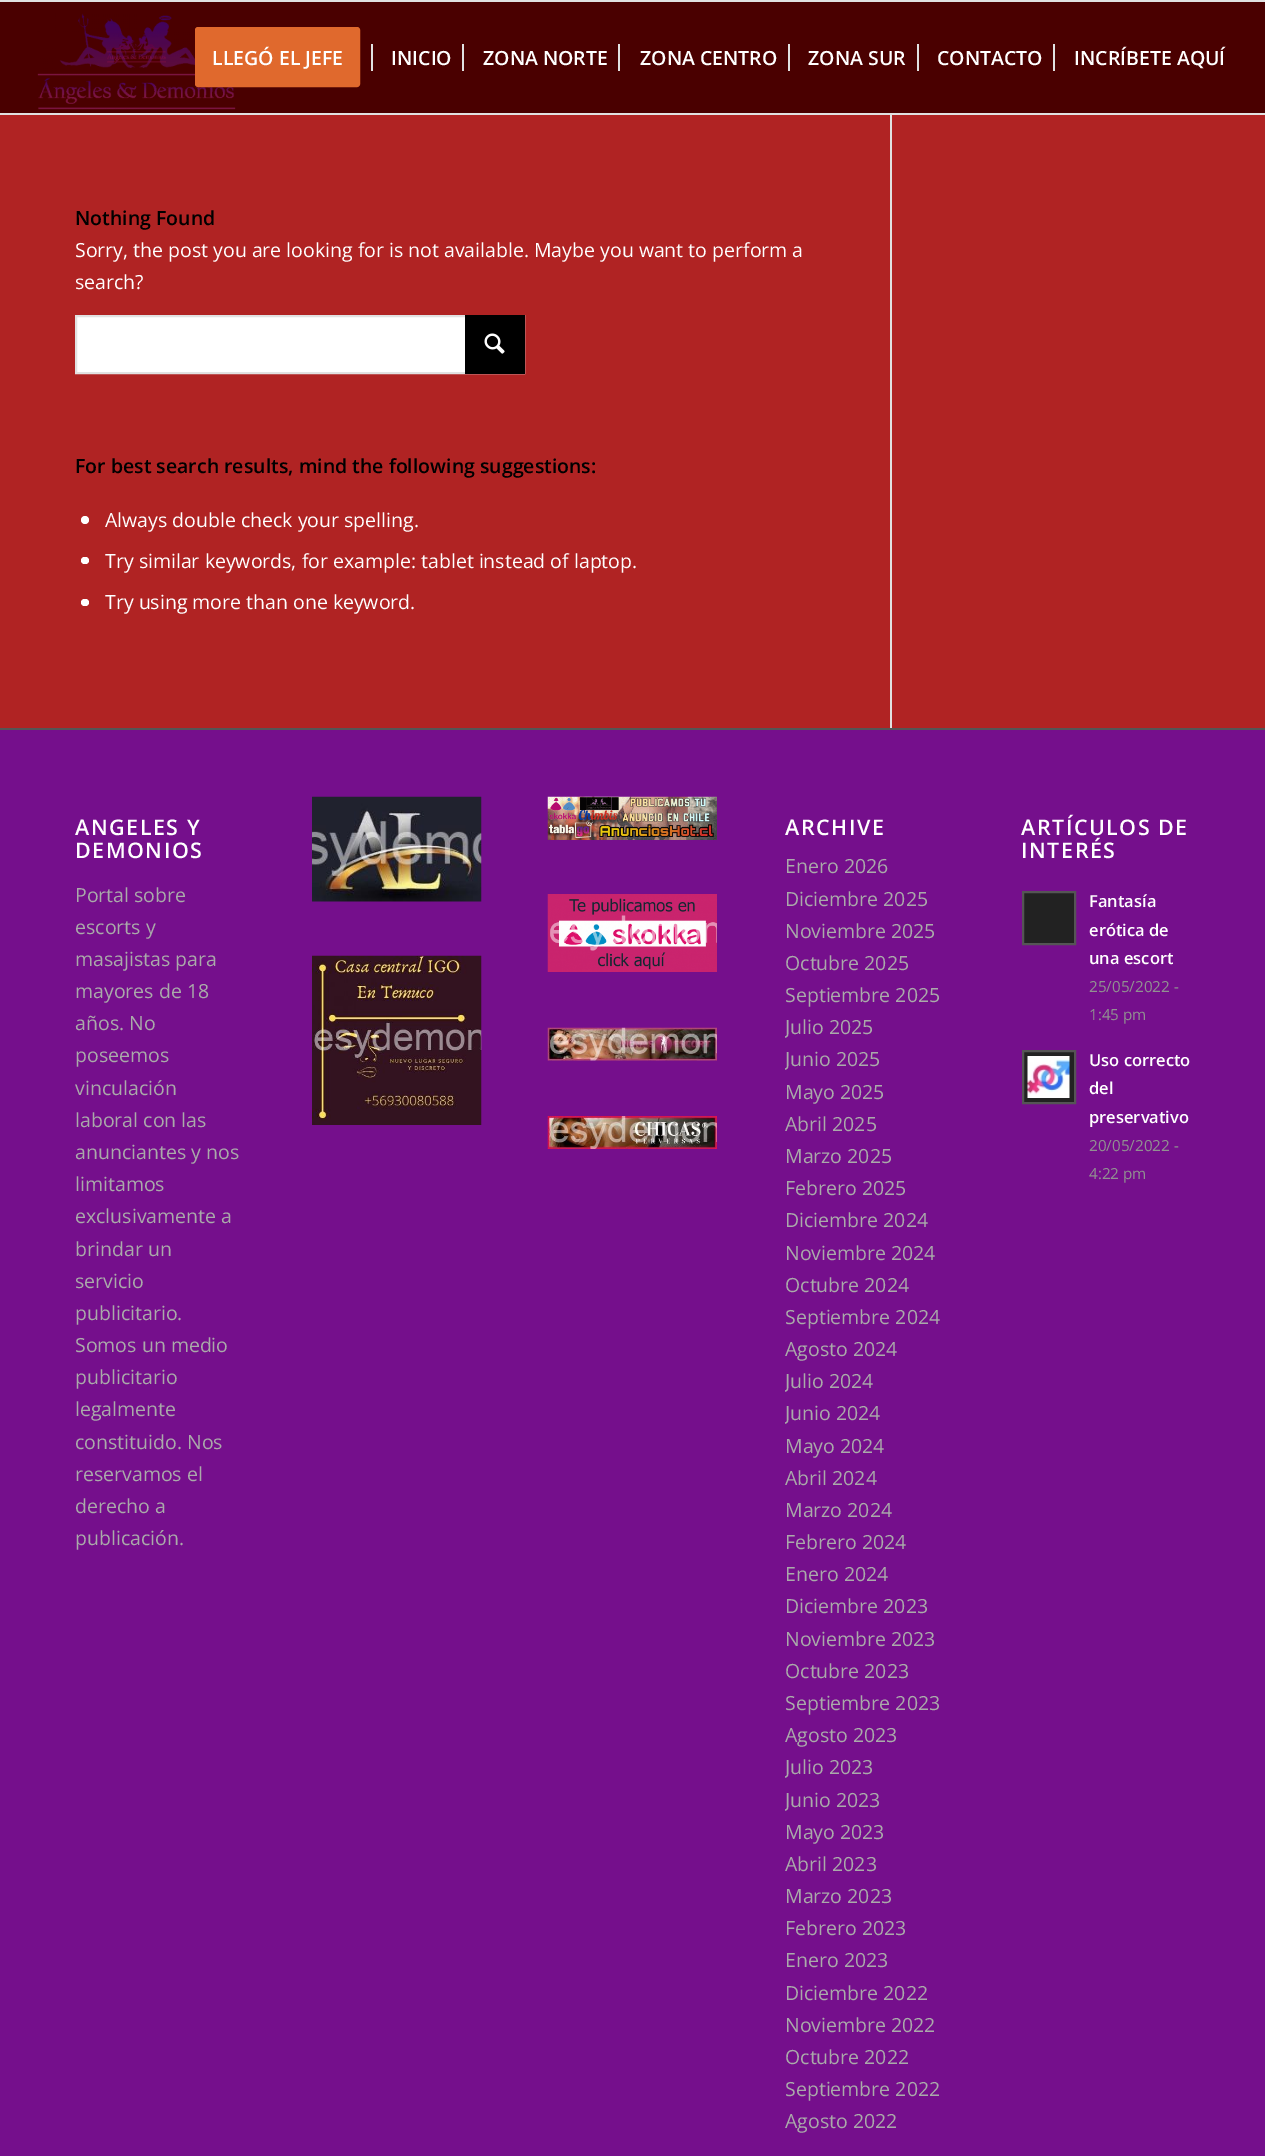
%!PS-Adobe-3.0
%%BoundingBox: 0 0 1265 2156
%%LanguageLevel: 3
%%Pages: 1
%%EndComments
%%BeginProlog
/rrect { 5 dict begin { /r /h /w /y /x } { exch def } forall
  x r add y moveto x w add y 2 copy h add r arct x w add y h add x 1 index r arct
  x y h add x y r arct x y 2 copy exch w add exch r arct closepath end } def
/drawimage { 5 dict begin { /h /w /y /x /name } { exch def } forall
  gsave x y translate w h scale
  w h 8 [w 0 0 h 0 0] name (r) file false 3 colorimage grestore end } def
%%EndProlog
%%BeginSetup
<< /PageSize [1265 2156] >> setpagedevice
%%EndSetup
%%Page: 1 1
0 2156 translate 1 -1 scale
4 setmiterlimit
0.69 0.137 0.137 setrgbcolor
0 0 1265 2156 rectfill
0.882 setgray
890 111 2 617 rectfill
0.29 0 0 setrgbcolor
0 2 1265 111 rectfill
0.882 setgray
0 0 1265 2 rectfill
0 113 1265 2 rectfill
(images/1.raw) 37 13 199 97 drawimage
0.878 0.412 0.176 setrgbcolor
196.5 28.5 162 57 1.5 rrect gsave fill grestore
3 setlinewidth
stroke
0.882 setgray
371 44 2 27 rectfill
462 44 2 27 rectfill
618 44 2 27 rectfill
788 44 2 27 rectfill
917 44 2 27 rectfill
1053 44 2 27 rectfill
1 setgray
77 317 388 55 rectfill
0.882 setgray
2 setlinewidth
76 316 448 57 rectstroke
0 setgray
465 315 60 59 rectfill
(images/2.raw) 484 333 21 21 drawimage
1 setgray
newpath 85 520 4 0 360 arc closepath fill
81 557 8 7 3.5 rrect fill
81 599 8 7 3.5 rrect fill
0.459 0.059 0.549 setrgbcolor
0 730 1265 1426 rectfill
0.333 setgray
0 728 1265 2 rectfill
(images/3.raw) 312 796 170 106 drawimage
(images/4.raw) 312 955 170 170 drawimage
(images/5.raw) 547 796 170 44 drawimage
(images/6.raw) 547 894 170 78 drawimage
(images/7.raw) 547 1027 170 34 drawimage
(images/8.raw) 547 1116 170 33 drawimage
0.133 setgray
newpath 1023 892 moveto 1075 892 lineto 1075 944 lineto 1023 944 lineto closepath gsave fill grestore
0.333 setgray
stroke
0.133 setgray
newpath 1023 1051 moveto 1075 1051 lineto 1075 1103 lineto 1023 1103 lineto closepath gsave fill grestore
0.333 setgray
stroke
(images/9.raw) 1027 1056 43 42 drawimage
/OpenSans-SemiBold [19.5 0 0 -19.5 0 0] selectfont
1 setgray
212 65 moveto (LLEGÓ EL JEFE) show
391 65 moveto (INICIO) show
483 65 moveto (ZONA NORTE) show
640 65 moveto (ZONA CENTRO) show
808 65 moveto (ZONA SUR) show
937 65 moveto (CONTACTO) show
1074 65 moveto (INCRÍBETE AQUÍ) show
0 setgray
75 225 moveto (Nothing Found) show
/OpenSans-Regular [19.5 0 0 -19.5 0 0] selectfont
1 setgray
75 257 moveto (Sorry, the post you are looking for is not available. Maybe you want to perform a) show
75 289 moveto (search?) show
/OpenSans-SemiBold [19.5 0 0 -19.5 0 0] selectfont
0 setgray
75 473 moveto (For best search results, mind the following suggestions:) show
/OpenSans-Regular [19.5 0 0 -19.5 0 0] selectfont
1 setgray
105 527 moveto (Always double check your spelling.) show
105 568 moveto (Try similar keywords, for example: tablet instead of laptop.) show
105 609 moveto (Try using more than one keyword.) show
/OpenSans-SemiBold [21.5 0 0 -21.5 0 0] selectfont
75 835 moveto 1.5 0 (ANGELES Y) ashow
75 858 moveto 1.5 0 (DEMONIOS) ashow
/OpenSans-Regular [19.5 0 0 -19.5 0 0] selectfont
0.667 setgray
75 902 moveto (Portal sobre) show
75 934 moveto (escorts y) show
75 966 moveto (masajistas para) show
75 998 moveto (mayores de 18) show
75 1030 moveto (años. No) show
75 1062 moveto (poseemos) show
75 1095 moveto (vinculación) show
75 1127 moveto (laboral con las) show
75 1159 moveto (anunciantes y nos) show
75 1191 moveto (limitamos) show
75 1223 moveto (exclusivamente a) show
75 1256 moveto (brindar un) show
75 1288 moveto (servicio) show
75 1320 moveto (publicitario.) show
75 1352 moveto (Somos un medio) show
75 1384 moveto (publicitario) show
75 1416 moveto (legalmente) show
75 1449 moveto (constituido. Nos) show
75 1481 moveto (reservamos el) show
75 1513 moveto (derecho a) show
75 1545 moveto (publicación.) show
/OpenSans-SemiBold [21.5 0 0 -21.5 0 0] selectfont
1 setgray
785 835 moveto 1.5 0 (ARCHIVE) ashow
/OpenSans-Regular [19.5 0 0 -19.5 0 0] selectfont
0.667 setgray
785 873 moveto (Enero 2026) show
785 906 moveto (Diciembre 2025) show
785 938 moveto (Noviembre 2025) show
785 970 moveto (Octubre 2025) show
785 1002 moveto (Septiembre 2025) show
gsave
785 797 169 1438 rectclip
785 1034 moveto (Julio 2025) show
785 1066 moveto (Junio 2025) show
grestore
785 1099 moveto (Mayo 2025) show
785 1131 moveto (Abril 2025) show
785 1163 moveto (Marzo 2025) show
785 1195 moveto (Febrero 2025) show
785 1227 moveto (Diciembre 2024) show
785 1260 moveto (Noviembre 2024) show
785 1292 moveto (Octubre 2024) show
785 1324 moveto (Septiembre 2024) show
785 1356 moveto (Agosto 2024) show
gsave
785 797 169 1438 rectclip
785 1388 moveto (Julio 2024) show
785 1420 moveto (Junio 2024) show
grestore
785 1453 moveto (Mayo 2024) show
785 1485 moveto (Abril 2024) show
785 1517 moveto (Marzo 2024) show
785 1549 moveto (Febrero 2024) show
785 1581 moveto (Enero 2024) show
785 1613 moveto (Diciembre 2023) show
785 1646 moveto (Noviembre 2023) show
785 1678 moveto (Octubre 2023) show
785 1710 moveto (Septiembre 2023) show
785 1742 moveto (Agosto 2023) show
gsave
785 797 169 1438 rectclip
785 1774 moveto (Julio 2023) show
785 1807 moveto (Junio 2023) show
grestore
785 1839 moveto (Mayo 2023) show
785 1871 moveto (Abril 2023) show
785 1903 moveto (Marzo 2023) show
785 1935 moveto (Febrero 2023) show
785 1967 moveto (Enero 2023) show
785 2000 moveto (Diciembre 2022) show
785 2032 moveto (Noviembre 2022) show
785 2064 moveto (Octubre 2022) show
785 2096 moveto (Septiembre 2022) show
785 2128 moveto (Agosto 2022) show
/OpenSans-SemiBold [21.5 0 0 -21.5 0 0] selectfont
1 setgray
1021 835 moveto 1.5 0 (ARTÍCULOS DE) ashow
1021 858 moveto 1.5 0 (INTERÉS) ashow
/OpenSans-SemiBold [16.5 0 0 -16.5 0 0] selectfont
1089 907 moveto (Fantasía) show
1089 936 moveto (erótica de) show
1089 964 moveto (una escort) show
/OpenSans-Regular [15.25 0 0 -15.25 0 0] selectfont
0.569 setgray
1089 992 moveto (25/05/2022 -) show
1089 1020 moveto (1:45 pm) show
/OpenSans-SemiBold [16.5 0 0 -16.5 0 0] selectfont
1 setgray
1089 1066 moveto (Uso correcto) show
1089 1094 moveto (del) show
1089 1123 moveto (preservativo) show
/OpenSans-Regular [15.25 0 0 -15.25 0 0] selectfont
0.569 setgray
1089 1151 moveto (20/05/2022 -) show
1089 1179 moveto (4:22 pm) show
showpage
%%EOF
